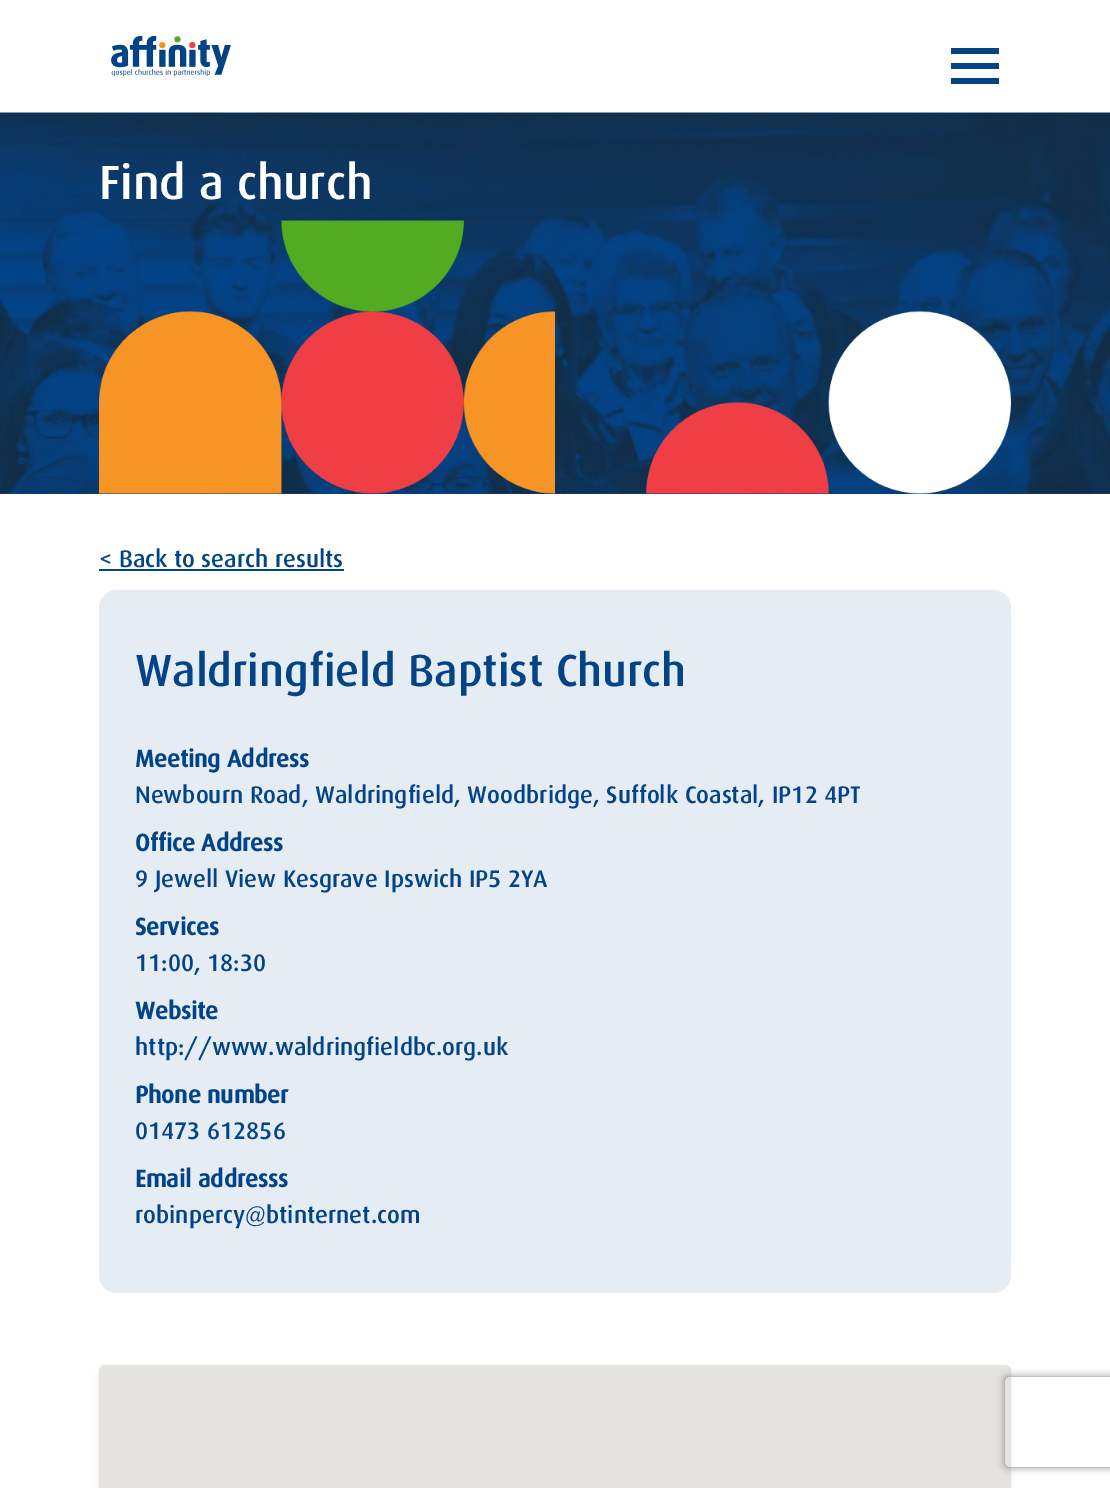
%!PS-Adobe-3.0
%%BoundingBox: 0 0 1110 1488
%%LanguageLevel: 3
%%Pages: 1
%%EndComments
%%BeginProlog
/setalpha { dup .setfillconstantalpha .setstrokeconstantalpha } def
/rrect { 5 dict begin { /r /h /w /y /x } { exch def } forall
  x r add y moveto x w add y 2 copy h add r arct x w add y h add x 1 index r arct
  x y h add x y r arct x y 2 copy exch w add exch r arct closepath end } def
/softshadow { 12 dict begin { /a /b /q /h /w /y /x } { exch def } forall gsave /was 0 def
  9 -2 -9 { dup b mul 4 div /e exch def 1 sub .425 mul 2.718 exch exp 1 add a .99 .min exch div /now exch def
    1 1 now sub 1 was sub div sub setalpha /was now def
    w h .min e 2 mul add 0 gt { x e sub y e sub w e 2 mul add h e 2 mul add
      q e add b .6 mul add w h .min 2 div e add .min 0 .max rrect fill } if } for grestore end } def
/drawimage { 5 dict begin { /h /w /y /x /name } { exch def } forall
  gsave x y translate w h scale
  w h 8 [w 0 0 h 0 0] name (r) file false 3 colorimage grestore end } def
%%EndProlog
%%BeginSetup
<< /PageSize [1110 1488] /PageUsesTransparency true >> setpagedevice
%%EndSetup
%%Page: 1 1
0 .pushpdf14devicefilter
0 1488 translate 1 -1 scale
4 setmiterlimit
1 setgray
0 0 1110 1488 rectfill
(images/1.raw) 111 36 120 41 drawimage
0.012 0.263 0.533 setrgbcolor
951 48 48 6 rectfill
951 63 48 6 rectfill
951 78 48 6 rectfill
0 493 1110 1 rectfill
(images/2.raw) 0 112 1110 382 drawimage
(images/3.raw) 99 220 912 274 drawimage
99 569 245 2 rectfill
0.898 0.925 0.953 setrgbcolor
99 590 912 703 18 rrect fill
0 setgray
99 1367 912 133 6 2 0.1 softshadow
0.898 0.89 0.875 setrgbcolor
99 1365 912 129 6 rrect fill
gsave
newpath 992 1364 moveto 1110 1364 lineto 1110 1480 lineto 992 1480 lineto closepath 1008 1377 moveto 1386 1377 lineto 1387.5 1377 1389 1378.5 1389 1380 curveto 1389 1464 lineto 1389 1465.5 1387.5 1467 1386 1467 curveto 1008 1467 lineto 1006.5 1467 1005 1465.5 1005 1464 curveto 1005 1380 lineto 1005 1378.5 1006.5 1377 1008 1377 curveto closepath eoclip newpath
0.502 setgray
1005 1377 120 90 3 4 1 softshadow
grestore
/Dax-Medium [48 0 0 -48 0 0] selectfont
1 setgray
99 199 moveto (Find a church) show
/Dax-Medium [24 0 0 -24 0 0] selectfont
0.012 0.263 0.533 setrgbcolor
99 567 moveto (< Back to search results) show
/Dax-Medium [45 0 0 -45 0 0] selectfont
135 686 moveto (Waldringfield Baptist Church) show
/Dax-Bold [24 0 0 -24 0 0] selectfont
135 767 moveto (Meeting Address) show
/Dax-Medium [24 0 0 -24 0 0] selectfont
135 803 moveto (Newbourn Road, Waldringfield, Woodbridge, Suffolk Coastal, IP12 4PT) show
/Dax-Bold [24 0 0 -24 0 0] selectfont
135 851 moveto (Office Address) show
/Dax-Medium [24 0 0 -24 0 0] selectfont
135 887 moveto (9 Jewell View Kesgrave Ipswich IP5 2YA) show
/Dax-Bold [24 0 0 -24 0 0] selectfont
135 935 moveto (Services) show
/Dax-Medium [24 0 0 -24 0 0] selectfont
135 971 moveto (11:00, 18:30) show
/Dax-Bold [24 0 0 -24 0 0] selectfont
135 1019 moveto (Website) show
/Dax-Medium [24 0 0 -24 0 0] selectfont
135 1055 moveto (http://www.waldringfieldbc.org.uk) show
/Dax-Bold [24 0 0 -24 0 0] selectfont
135 1103 moveto (Phone number) show
/Dax-Medium [24 0 0 -24 0 0] selectfont
135 1139 moveto (01473 612856) show
/Dax-Bold [24 0 0 -24 0 0] selectfont
135 1187 moveto (Email addresss) show
/Dax-Medium [24 0 0 -24 0 0] selectfont
135 1223 moveto (robinpercy@btinternet.com) show
.poppdf14devicefilter showpage
%%EOF
